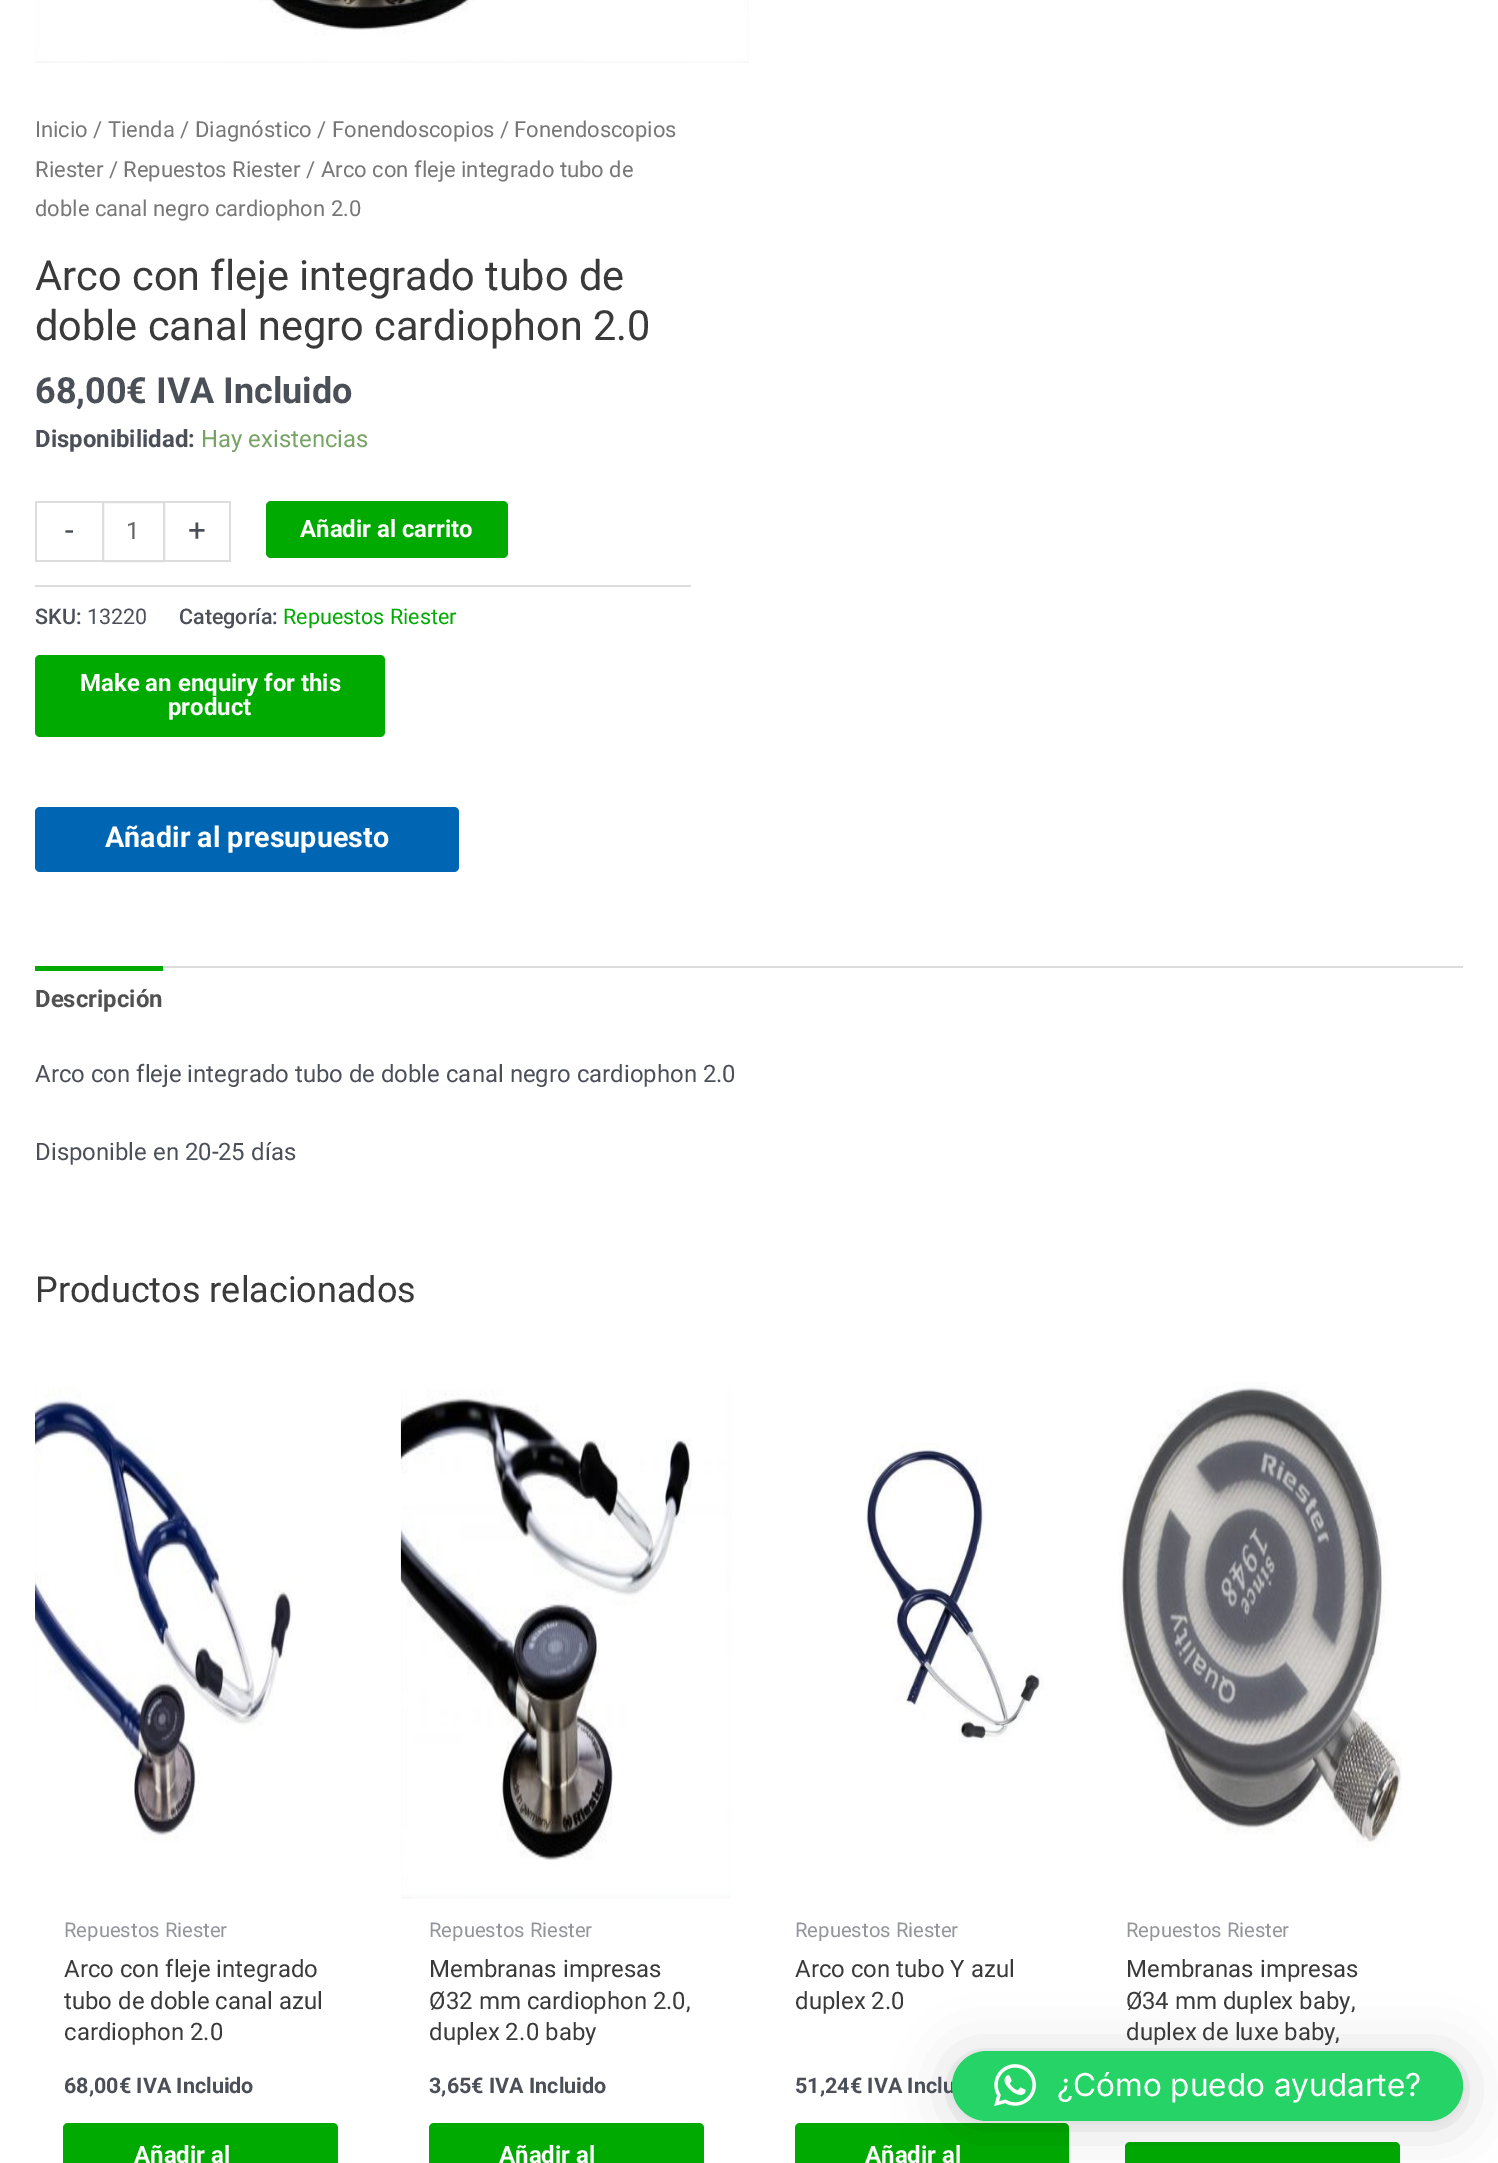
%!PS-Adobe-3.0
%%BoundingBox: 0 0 1498 2163
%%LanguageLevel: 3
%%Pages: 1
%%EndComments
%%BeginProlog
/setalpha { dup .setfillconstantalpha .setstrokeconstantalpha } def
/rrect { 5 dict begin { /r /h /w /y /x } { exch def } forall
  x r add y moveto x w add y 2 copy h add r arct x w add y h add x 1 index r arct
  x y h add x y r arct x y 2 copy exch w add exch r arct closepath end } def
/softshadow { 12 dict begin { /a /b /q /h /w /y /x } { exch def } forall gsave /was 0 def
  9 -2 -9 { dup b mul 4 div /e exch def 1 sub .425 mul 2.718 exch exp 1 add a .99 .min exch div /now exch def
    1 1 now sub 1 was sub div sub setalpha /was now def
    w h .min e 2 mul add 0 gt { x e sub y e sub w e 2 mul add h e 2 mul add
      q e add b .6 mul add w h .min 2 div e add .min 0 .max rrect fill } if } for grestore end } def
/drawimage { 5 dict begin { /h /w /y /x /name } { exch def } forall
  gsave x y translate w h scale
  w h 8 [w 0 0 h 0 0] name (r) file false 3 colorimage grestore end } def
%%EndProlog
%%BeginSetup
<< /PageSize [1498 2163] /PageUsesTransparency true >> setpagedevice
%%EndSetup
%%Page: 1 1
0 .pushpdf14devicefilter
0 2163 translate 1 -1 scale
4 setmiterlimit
1 setgray
0 0 1498 2163 rectfill
(images/1.raw) 35 0 714 63 drawimage
0.867 setgray
35 501 67 2 rectfill
35 560 67 2 rectfill
35 501 2 61 rectfill
2 setlinewidth
103 502 61 59 rectstroke
165 501 66 2 rectfill
229 501 2 61 rectfill
165 560 66 2 rectfill
0 0.667 0.004 setrgbcolor
266 501 242 57 5 rrect fill
0.867 setgray
35 585 656 2 rectfill
0 0.667 0.004 setrgbcolor
35 655 350 82 5 rrect fill
0 0.4 0.706 setrgbcolor
35 807 424 65 5 rrect fill
0.867 setgray
163 966 1300 2 rectfill
0 0.667 0.004 setrgbcolor
35 966 128 5 rectfill
(images/2.raw) 35 1387 258 455 drawimage
63 2123 275 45 5 rrect fill
(images/3.raw) 400 1389 331 510 drawimage
429 2123 275 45 5 rrect fill
(images/4.raw) 866 1443 178 300 drawimage
795 2123 274 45 5 rrect fill
(images/5.raw) 1118 1382 284 466 drawimage
1125 2142 275 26 5 rrect fill
0 setgray
952 2055 511 70 35 28 0.16 softshadow
952 2053 511 70 35 5 0.06 softshadow
/Roboto-Regular [22 0 0 -22 0 0] selectfont
0.467 setgray
35 137 moveto (Inicio) show
/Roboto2-Regular [22 0 0 -22 0 0] selectfont
93 137 moveto (/) show
/Roboto-Regular [22 0 0 -22 0 0] selectfont
108 137 moveto (Tienda) show
/Roboto2-Regular [22 0 0 -22 0 0] selectfont
180 137 moveto (/) show
/Roboto-Regular [22 0 0 -22 0 0] selectfont
195 137 moveto (Diagn) show
/Roboto2-Regular [22 0 0 -22 0 0] selectfont
251 137 moveto (ó) show
/Roboto-Regular [22 0 0 -22 0 0] selectfont
264 137 moveto (stico) show
/Roboto2-Regular [22 0 0 -22 0 0] selectfont
317 137 moveto (/) show
/Roboto-Regular [22 0 0 -22 0 0] selectfont
332 137 moveto (Fonendoscopios) show
/Roboto2-Regular [22 0 0 -22 0 0] selectfont
500 137 moveto (/) show
/Roboto-Regular [22 0 0 -22 0 0] selectfont
514 137 moveto (Fonendoscopios) show
35 177 moveto (Riester) show
/Roboto2-Regular [22 0 0 -22 0 0] selectfont
109 177 moveto (/) show
/Roboto-Regular [22 0 0 -22 0 0] selectfont
123 177 moveto (Repuestos Riester) show
/Roboto2-Regular [22 0 0 -22 0 0] selectfont
306 177 moveto (/) show
/Roboto-Regular [22 0 0 -22 0 0] selectfont
321 177 moveto (Arco con fleje integrado tubo de) show
35 216 moveto (doble canal negro cardiophon 2) show
/Roboto2-Regular [22 0 0 -22 0 0] selectfont
343 216 moveto (.) show
/Roboto-Regular [22 0 0 -22 0 0] selectfont
349 216 moveto (0) show
/Roboto-Regular [41.5 0 0 -41.5 0 0] selectfont
0.227 setgray
35 290 moveto (Arco con fleje integrado tubo de) show
35 340 moveto (doble canal negro cardiophon 2) show
/Roboto2-Regular [41.5 0 0 -41.5 0 0] selectfont
616 340 moveto (.) show
/Roboto-Regular [41.5 0 0 -41.5 0 0] selectfont
627 340 moveto (0) show
/Roboto-Bold [36 0 0 -36 0 0] selectfont
0.294 0.31 0.345 setrgbcolor
35 403 moveto (68,00€ IVA Incluido) show
/Roboto-Bold [23.95 0 0 -23.95 0 0] selectfont
35 447 moveto (Disponibilidad:) show
/Roboto-Regular [23.95 0 0 -23.95 0 0] selectfont
0.467 0.643 0.392 setrgbcolor
201 447 moveto (Hay existencias) show
/Roboto2-Regular [31.5 0 0 -31.5 0 0] selectfont
0.294 0.31 0.345 setrgbcolor
65 541 moveto (-) show
/Roboto-Regular [23.95 0 0 -23.95 0 0] selectfont
0.4 setgray
126 539 moveto (1) show
/Roboto2-Regular [31.5 0 0 -31.5 0 0] selectfont
0.294 0.31 0.345 setrgbcolor
188 541 moveto (+) show
/Roboto-Bold [23.95 0 0 -23.95 0 0] selectfont
1 setgray
300 537 moveto (Añadir al carrito) show
/Roboto-Medium [21.5 0 0 -21.5 0 0] selectfont
0.294 0.31 0.345 setrgbcolor
35 624 moveto (SKU:) show
/Roboto-Regular [21.5 0 0 -21.5 0 0] selectfont
87 624 moveto (13220) show
/Roboto-Medium [21.5 0 0 -21.5 0 0] selectfont
179 624 moveto (Categoría:) show
/Roboto-Regular [21.5 0 0 -21.5 0 0] selectfont
0 0.667 0.004 setrgbcolor
283 624 moveto (Repuestos Riester) show
/Roboto-Bold [23.95 0 0 -23.95 0 0] selectfont
1 setgray
80 691 moveto (Make an enquiry for this) show
168 715 moveto (product) show
/Roboto-Bold [28.75 0 0 -28.75 0 0] selectfont
105 847 moveto (Añadir al presupuesto) show
/Roboto-Bold [23.95 0 0 -23.95 0 0] selectfont
0.318 setgray
35 1007 moveto (Descripción) show
/Roboto-Regular [23.95 0 0 -23.95 0 0] selectfont
0.294 0.31 0.345 setrgbcolor
35 1082 moveto (Arco con fleje integrado tubo de doble canal negro cardiophon 2) show
/Roboto2-Regular [23.95 0 0 -23.95 0 0] selectfont
716 1082 moveto (.) show
/Roboto-Regular [23.95 0 0 -23.95 0 0] selectfont
722 1082 moveto (0) show
35 1160 moveto (Disponible en 20) show
/Roboto2-Regular [23.95 0 0 -23.95 0 0] selectfont
212 1160 moveto (-) show
/Roboto-Regular [23.95 0 0 -23.95 0 0] selectfont
218 1160 moveto (25 d) show
/Roboto2-Regular [23.95 0 0 -23.95 0 0] selectfont
265 1160 moveto (í) show
/Roboto-Regular [23.95 0 0 -23.95 0 0] selectfont
271 1160 moveto (as) show
/Roboto-Regular [36 0 0 -36 0 0] selectfont
0.227 setgray
35 1302 moveto (Productos relacionados) show
/Roboto-Regular [20.25 0 0 -20.25 0 0] selectfont
0.576 0.584 0.608 setrgbcolor
64 1937 moveto (Repuestos Riester) show
/Roboto-Regular [23.95 0 0 -23.95 0 0] selectfont
0.227 setgray
64 1977 moveto (Arco con fleje integrado) show
64 2009 moveto (tubo de doble canal azul) show
64 2040 moveto (cardiophon 2) show
/Roboto2-Regular [23.95 0 0 -23.95 0 0] selectfont
203 2040 moveto (.) show
/Roboto-Regular [23.95 0 0 -23.95 0 0] selectfont
210 2040 moveto (0) show
/Roboto-Bold [21.5 0 0 -21.5 0 0] selectfont
0.294 0.31 0.345 setrgbcolor
64 2093 moveto (68,00€ IVA Incluido) show
/Roboto-Bold [23.95 0 0 -23.95 0 0] selectfont
1 setgray
134 2163 moveto (Añadir al) show
/Roboto-Regular [20.25 0 0 -20.25 0 0] selectfont
0.576 0.584 0.608 setrgbcolor
429 1937 moveto (Repuestos Riester) show
/Roboto-Regular [23.95 0 0 -23.95 0 0] selectfont
0.227 setgray
429 1977 moveto (Membranas impresas) show
/Roboto2-Regular [23.95 0 0 -23.95 0 0] selectfont
429 2009 moveto (Ø) show
/Roboto-Regular [23.95 0 0 -23.95 0 0] selectfont
446 2009 moveto (32 mm cardiophon 2) show
/Roboto2-Regular [23.95 0 0 -23.95 0 0] selectfont
666 2009 moveto (.) show
/Roboto-Regular [23.95 0 0 -23.95 0 0] selectfont
672 2009 moveto (0) show
/Roboto2-Regular [23.95 0 0 -23.95 0 0] selectfont
686 2009 moveto (,) show
/Roboto-Regular [23.95 0 0 -23.95 0 0] selectfont
429 2040 moveto (duplex 2) show
/Roboto2-Regular [23.95 0 0 -23.95 0 0] selectfont
519 2040 moveto (.) show
/Roboto-Regular [23.95 0 0 -23.95 0 0] selectfont
526 2040 moveto (0 baby) show
/Roboto-Bold [21.5 0 0 -21.5 0 0] selectfont
0.294 0.31 0.345 setrgbcolor
429 2093 moveto (3,65€ IVA Incluido) show
/Roboto-Bold [23.95 0 0 -23.95 0 0] selectfont
1 setgray
499 2163 moveto (Añadir al) show
/Roboto-Regular [20.25 0 0 -20.25 0 0] selectfont
0.576 0.584 0.608 setrgbcolor
795 1937 moveto (Repuestos Riester) show
/Roboto-Regular [23.95 0 0 -23.95 0 0] selectfont
0.227 setgray
795 1977 moveto (Arco con tubo Y azul) show
795 2009 moveto (duplex 2) show
/Roboto2-Regular [23.95 0 0 -23.95 0 0] selectfont
885 2009 moveto (.) show
/Roboto-Regular [23.95 0 0 -23.95 0 0] selectfont
891 2009 moveto (0) show
/Roboto-Bold [21.5 0 0 -21.5 0 0] selectfont
0.294 0.31 0.345 setrgbcolor
795 2093 moveto (51,24€ IVA Inclu) show
/Roboto-Bold [23.95 0 0 -23.95 0 0] selectfont
1 setgray
865 2163 moveto (Añadir al) show
/Roboto-Regular [20.25 0 0 -20.25 0 0] selectfont
0.576 0.584 0.608 setrgbcolor
1126 1937 moveto (Repuestos Riester) show
/Roboto-Regular [23.95 0 0 -23.95 0 0] selectfont
0.227 setgray
1126 1977 moveto (Membranas impresas) show
/Roboto2-Regular [23.95 0 0 -23.95 0 0] selectfont
1126 2009 moveto (Ø) show
/Roboto-Regular [23.95 0 0 -23.95 0 0] selectfont
1142 2009 moveto (34 mm duplex baby) show
/Roboto2-Regular [23.95 0 0 -23.95 0 0] selectfont
1351 2009 moveto (,) show
/Roboto-Regular [23.95 0 0 -23.95 0 0] selectfont
1126 2040 moveto (duplex de luxe baby) show
/Roboto2-Regular [23.95 0 0 -23.95 0 0] selectfont
1335 2040 moveto (,) show
0.145 0.827 0.4 setrgbcolor
952 2051 511 70 35 rrect fill
(images/6.raw) 994 2064 42 43 drawimage
/Inter-Regular [31.5 0 0 -31.5 0 0] selectfont
1 setgray
1057 2096 moveto (¿Cómo puedo ayudarte?) show
.poppdf14devicefilter showpage
%%EOF
